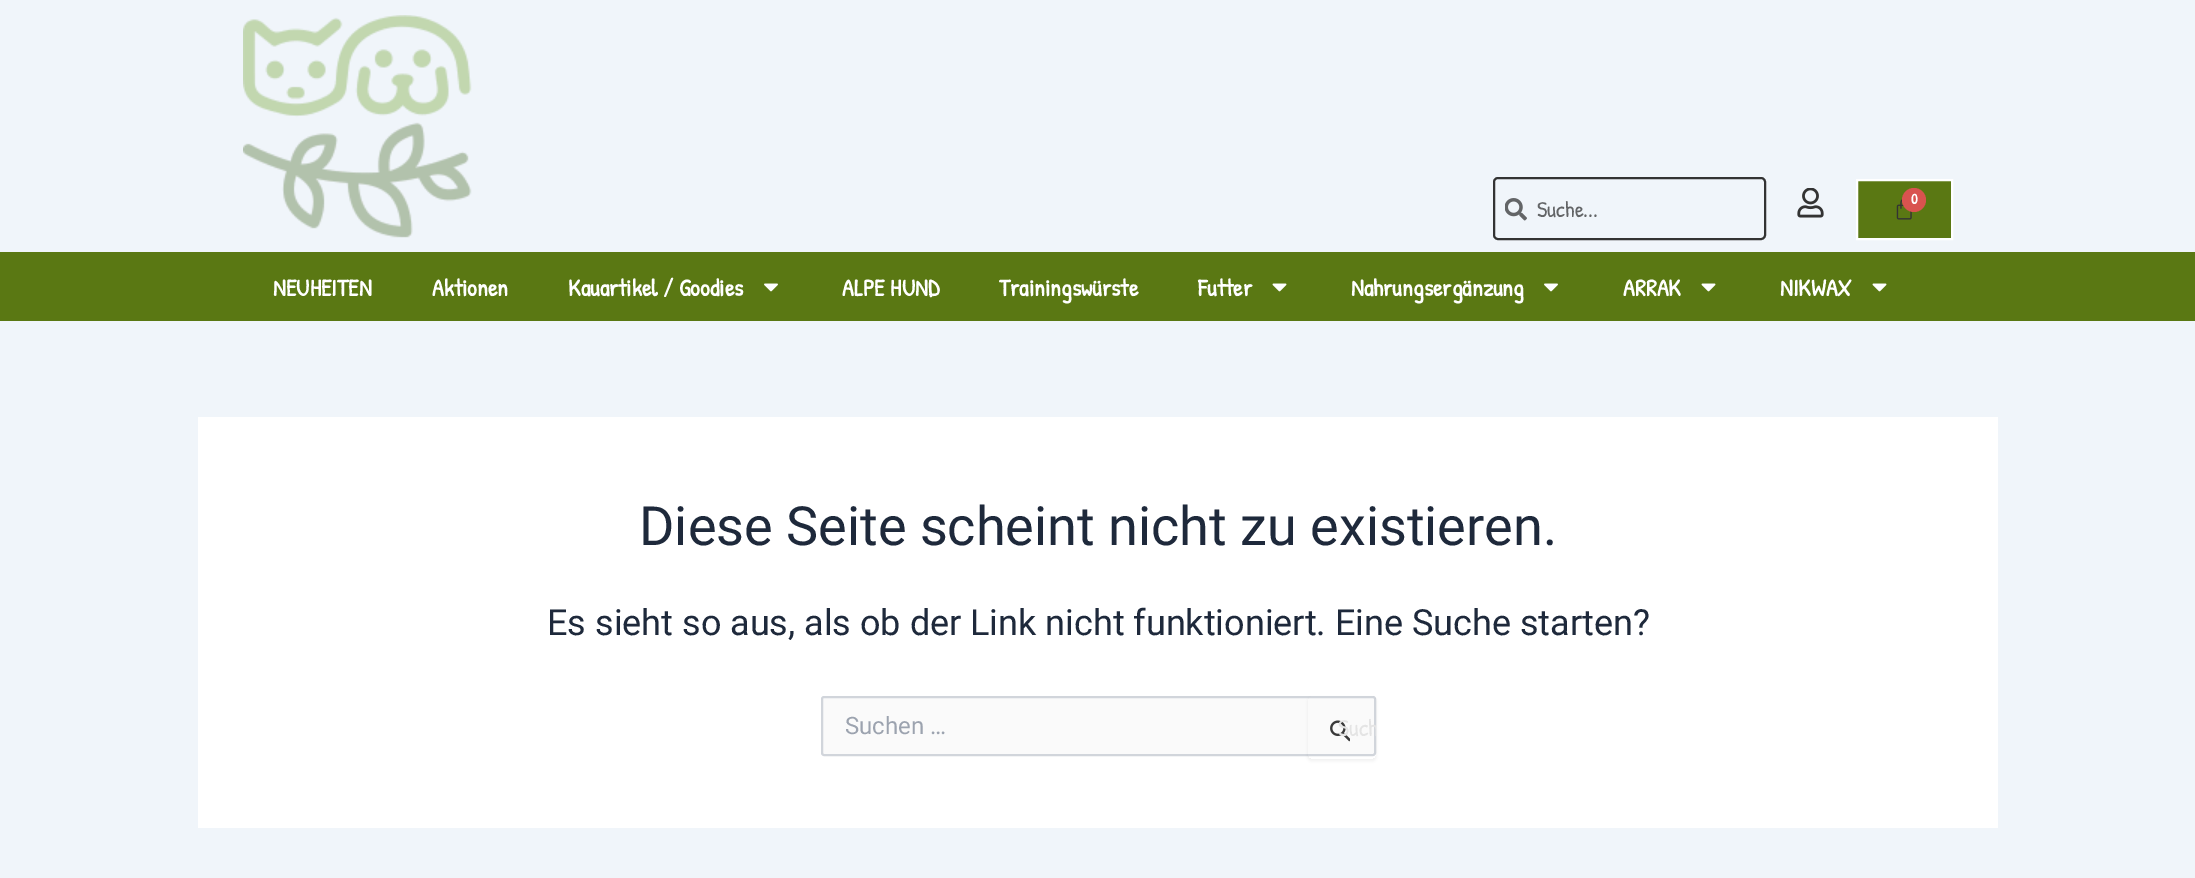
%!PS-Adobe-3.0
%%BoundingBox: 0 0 2195 878
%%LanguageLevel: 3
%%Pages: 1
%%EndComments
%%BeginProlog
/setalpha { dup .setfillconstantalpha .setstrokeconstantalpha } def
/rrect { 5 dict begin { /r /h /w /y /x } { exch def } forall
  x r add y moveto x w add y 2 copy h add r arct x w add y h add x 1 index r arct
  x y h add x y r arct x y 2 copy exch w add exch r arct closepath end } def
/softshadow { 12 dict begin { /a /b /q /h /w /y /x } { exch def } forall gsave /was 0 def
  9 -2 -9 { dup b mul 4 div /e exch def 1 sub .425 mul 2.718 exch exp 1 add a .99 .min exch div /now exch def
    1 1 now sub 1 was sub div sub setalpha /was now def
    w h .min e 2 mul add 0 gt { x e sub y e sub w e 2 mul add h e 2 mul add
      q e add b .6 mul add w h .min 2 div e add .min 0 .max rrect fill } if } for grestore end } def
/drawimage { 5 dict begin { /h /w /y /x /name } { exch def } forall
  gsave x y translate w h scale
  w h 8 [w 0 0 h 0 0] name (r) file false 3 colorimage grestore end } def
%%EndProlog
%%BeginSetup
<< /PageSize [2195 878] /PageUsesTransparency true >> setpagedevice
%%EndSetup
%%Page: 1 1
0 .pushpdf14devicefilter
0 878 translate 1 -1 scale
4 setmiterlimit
0.941 0.961 0.98 setrgbcolor
0 0 2195 878 rectfill
(images/1.raw) 243 15 229 223 drawimage
(images/2.raw) 1797 188 27 30 drawimage
0.353 0.471 0.075 setrgbcolor
newpath 1857 180 moveto 1952 180 lineto 1952 239 lineto 1857 239 lineto closepath gsave fill grestore
1 setgray
2 setlinewidth
stroke
(images/3.raw) 1896 199 16 21 drawimage
0.851 0.325 0.31 setrgbcolor
newpath 1914 200 12 0 360 arc closepath fill
0.2 setgray
1494 178 271 61 4 rrect stroke
(images/4.raw) 1505 198 22 23 drawimage
0.353 0.471 0.075 setrgbcolor
0 252 2195 69 rectfill
(images/5.raw) 764 283 14 9 drawimage
(images/6.raw) 1272 283 15 9 drawimage
(images/5.raw) 1544 283 14 9 drawimage
(images/6.raw) 1701 283 15 9 drawimage
(images/6.raw) 1872 283 15 9 drawimage
1 setgray
198 417 1800 411 rectfill
0.98 setgray
822 697 553 58 2 rrect gsave fill grestore
0.82 0.835 0.859 setrgbcolor
stroke
(images/7.raw) 1330 720 20 22 drawimage
gsave
newpath 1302 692 moveto 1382 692 lineto 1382 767 lineto 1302 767 lineto closepath 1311 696 moveto 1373 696 lineto 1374.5 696 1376 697.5 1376 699 curveto 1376 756 lineto 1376 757.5 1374.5 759 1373 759 curveto 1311 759 lineto 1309.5 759 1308 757.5 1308 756 curveto 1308 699 lineto 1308 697.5 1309.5 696 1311 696 curveto closepath eoclip newpath
0 setgray
1308 698 68 63 3 1.5 0.05 softshadow
grestore
/PatrickHand-Bold [15 0 0 -15 0 0] selectfont
1 setgray
1911 204 moveto (0) show
/PatrickHand-Regular [22.5 0 0 -22.5 0 0] selectfont
0.388 0.396 0.404 setrgbcolor
1537 217 moveto (Suche...) show
/PatrickHand-Bold [24 0 0 -24 0 0] selectfont
1 setgray
273 296 moveto (NEUHEITEN) show
432 296 moveto (Aktionen) show
568 296 moveto (Kauartikel / Goodies) show
842 296 moveto (ALPE HUND) show
999 296 moveto (Trainingswürste) show
1198 296 moveto (Futter) show
1351 296 moveto (Nahrungsergänzung) show
1623 296 moveto (ARRAK) show
1780 296 moveto (NIKWAX) show
/Roboto-Regular [54 0 0 -54 0 0] selectfont
0.118 0.161 0.231 setrgbcolor
639 545 moveto (Diese Seite scheint nicht zu existieren.) show
/Roboto-Regular [36 0 0 -36 0 0] selectfont
547 635 moveto (Es sieht so aus, als ob der Link nicht funktioniert. Eine Suche starten?) show
/Roboto-Regular [24 0 0 -24 0 0] selectfont
0.612 0.639 0.686 setrgbcolor
845 734 moveto (Suchen …) show
gsave
1308 696 68 63 3 rrect clip newpath
/PatrickHand-Regular [24 0 0 -24 0 0] selectfont
0.894 setgray
1338 736 moveto (Such) show
grestore
.poppdf14devicefilter showpage
%%EOF
